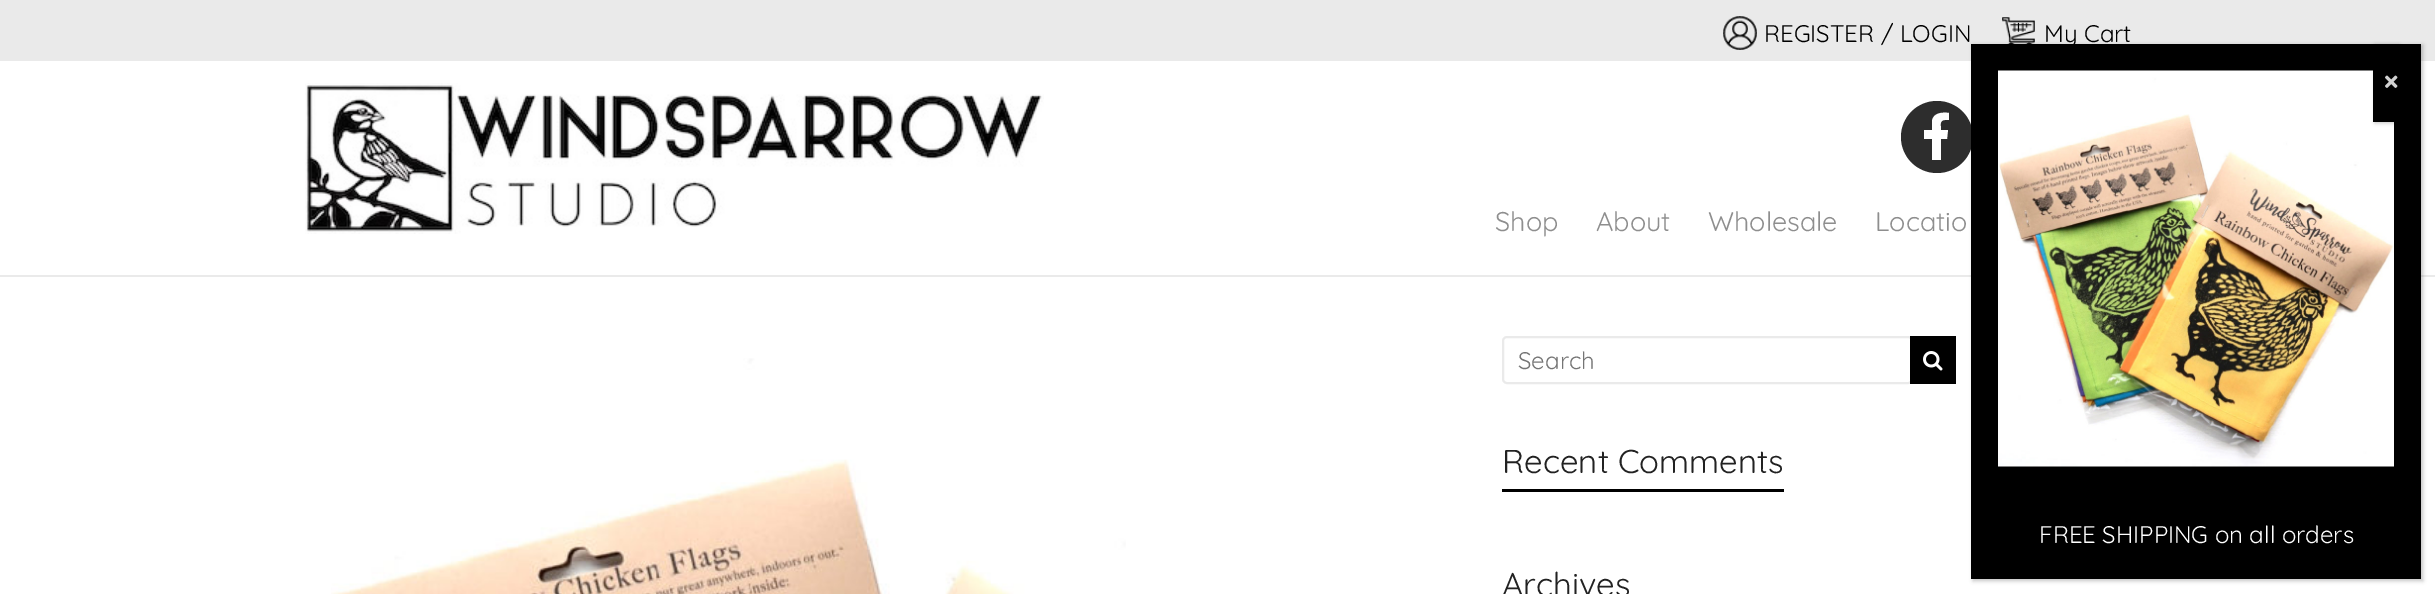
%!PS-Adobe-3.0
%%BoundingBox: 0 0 2435 594
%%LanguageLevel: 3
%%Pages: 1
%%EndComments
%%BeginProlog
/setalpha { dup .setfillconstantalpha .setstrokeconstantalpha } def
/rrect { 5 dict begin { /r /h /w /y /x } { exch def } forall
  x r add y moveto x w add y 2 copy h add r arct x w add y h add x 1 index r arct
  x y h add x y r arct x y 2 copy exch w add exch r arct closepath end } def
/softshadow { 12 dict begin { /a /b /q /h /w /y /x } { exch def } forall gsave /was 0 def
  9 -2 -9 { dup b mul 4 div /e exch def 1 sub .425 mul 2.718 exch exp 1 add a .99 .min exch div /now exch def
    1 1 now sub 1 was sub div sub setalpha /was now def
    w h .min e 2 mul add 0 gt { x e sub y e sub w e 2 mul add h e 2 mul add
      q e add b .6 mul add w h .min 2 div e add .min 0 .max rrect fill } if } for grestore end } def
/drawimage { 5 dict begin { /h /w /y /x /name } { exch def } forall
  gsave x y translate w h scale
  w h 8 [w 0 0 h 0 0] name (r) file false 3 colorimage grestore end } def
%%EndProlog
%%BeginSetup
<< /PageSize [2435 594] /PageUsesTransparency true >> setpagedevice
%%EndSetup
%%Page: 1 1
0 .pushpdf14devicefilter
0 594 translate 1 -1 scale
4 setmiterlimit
1 setgray
0 0 2435 594 rectfill
0.918 setgray
0 0 2435 61 rectfill
(images/1.raw) 1723 16 34 34 drawimage
(images/2.raw) 2002 17 33 27 drawimage
0 275 2435 2 rectfill
(images/3.raw) 305 83 739 151 drawimage
0.176 setgray
newpath 1937 137 36 0 360 arc closepath fill
1 setgray
newpath 1945 120 moveto 1939 120 1941 126 1941 130 curveto 1948 130 lineto 1947 139 lineto 1941 139 lineto 1941 160 lineto 1932 160 lineto 1932 139 lineto 1924 139 lineto 1924 130 lineto 1932 130 lineto 1932 121 lineto 1933 113 1942 112 1949 113 curveto 1949 120 lineto closepath fill
(images/4.raw) 331 358 795 236 drawimage
0.918 setgray
2 setlinewidth
1503 337 409 46 4 rrect stroke
0 setgray
1910 336 46 48 rectfill
(images/5.raw) 1923 351 20 20 drawimage
1502 489 282 3 rectfill
0.008 setgray
1973 45 450 536 0 2 0.23 softshadow
0 setgray
1971 44 450 535 rectfill
(images/7.raw) 1998 70 396 397 drawimage
0.008 setgray
2375 45 24 78 0 2 0.23 softshadow
0 setgray
2373 70 21 52 rectfill
(images/6.raw) 2385 75 13 13 drawimage
/Quicksand-Light [24 0 0 -24 0 0] selectfont
1764 42 moveto (REGISTER / LOGIN) show
2044 42 moveto (My Cart) show
/Quicksand-Light [27 0 0 -27 0 0] selectfont
0.557 setgray
1495 231 moveto (Shop) show
1596 231 moveto (About) show
1708 231 moveto (Wholesale) show
1875 231 moveto (Locatio) show
/Quicksand-Light [24 0 0 -24 0 0] selectfont
0.459 setgray
1518 369 moveto (Search) show
/Quicksand-Light [33 0 0 -33 0 0] selectfont
0.133 setgray
1502 473 moveto (Recent Comments) show
1502 596 moveto (Archives) show
/Quicksand-Light [24 0 0 -24 0 0] selectfont
1 setgray
2039 543 moveto (FREE SHIPPING on all orders) show
.poppdf14devicefilter showpage
%%EOF
